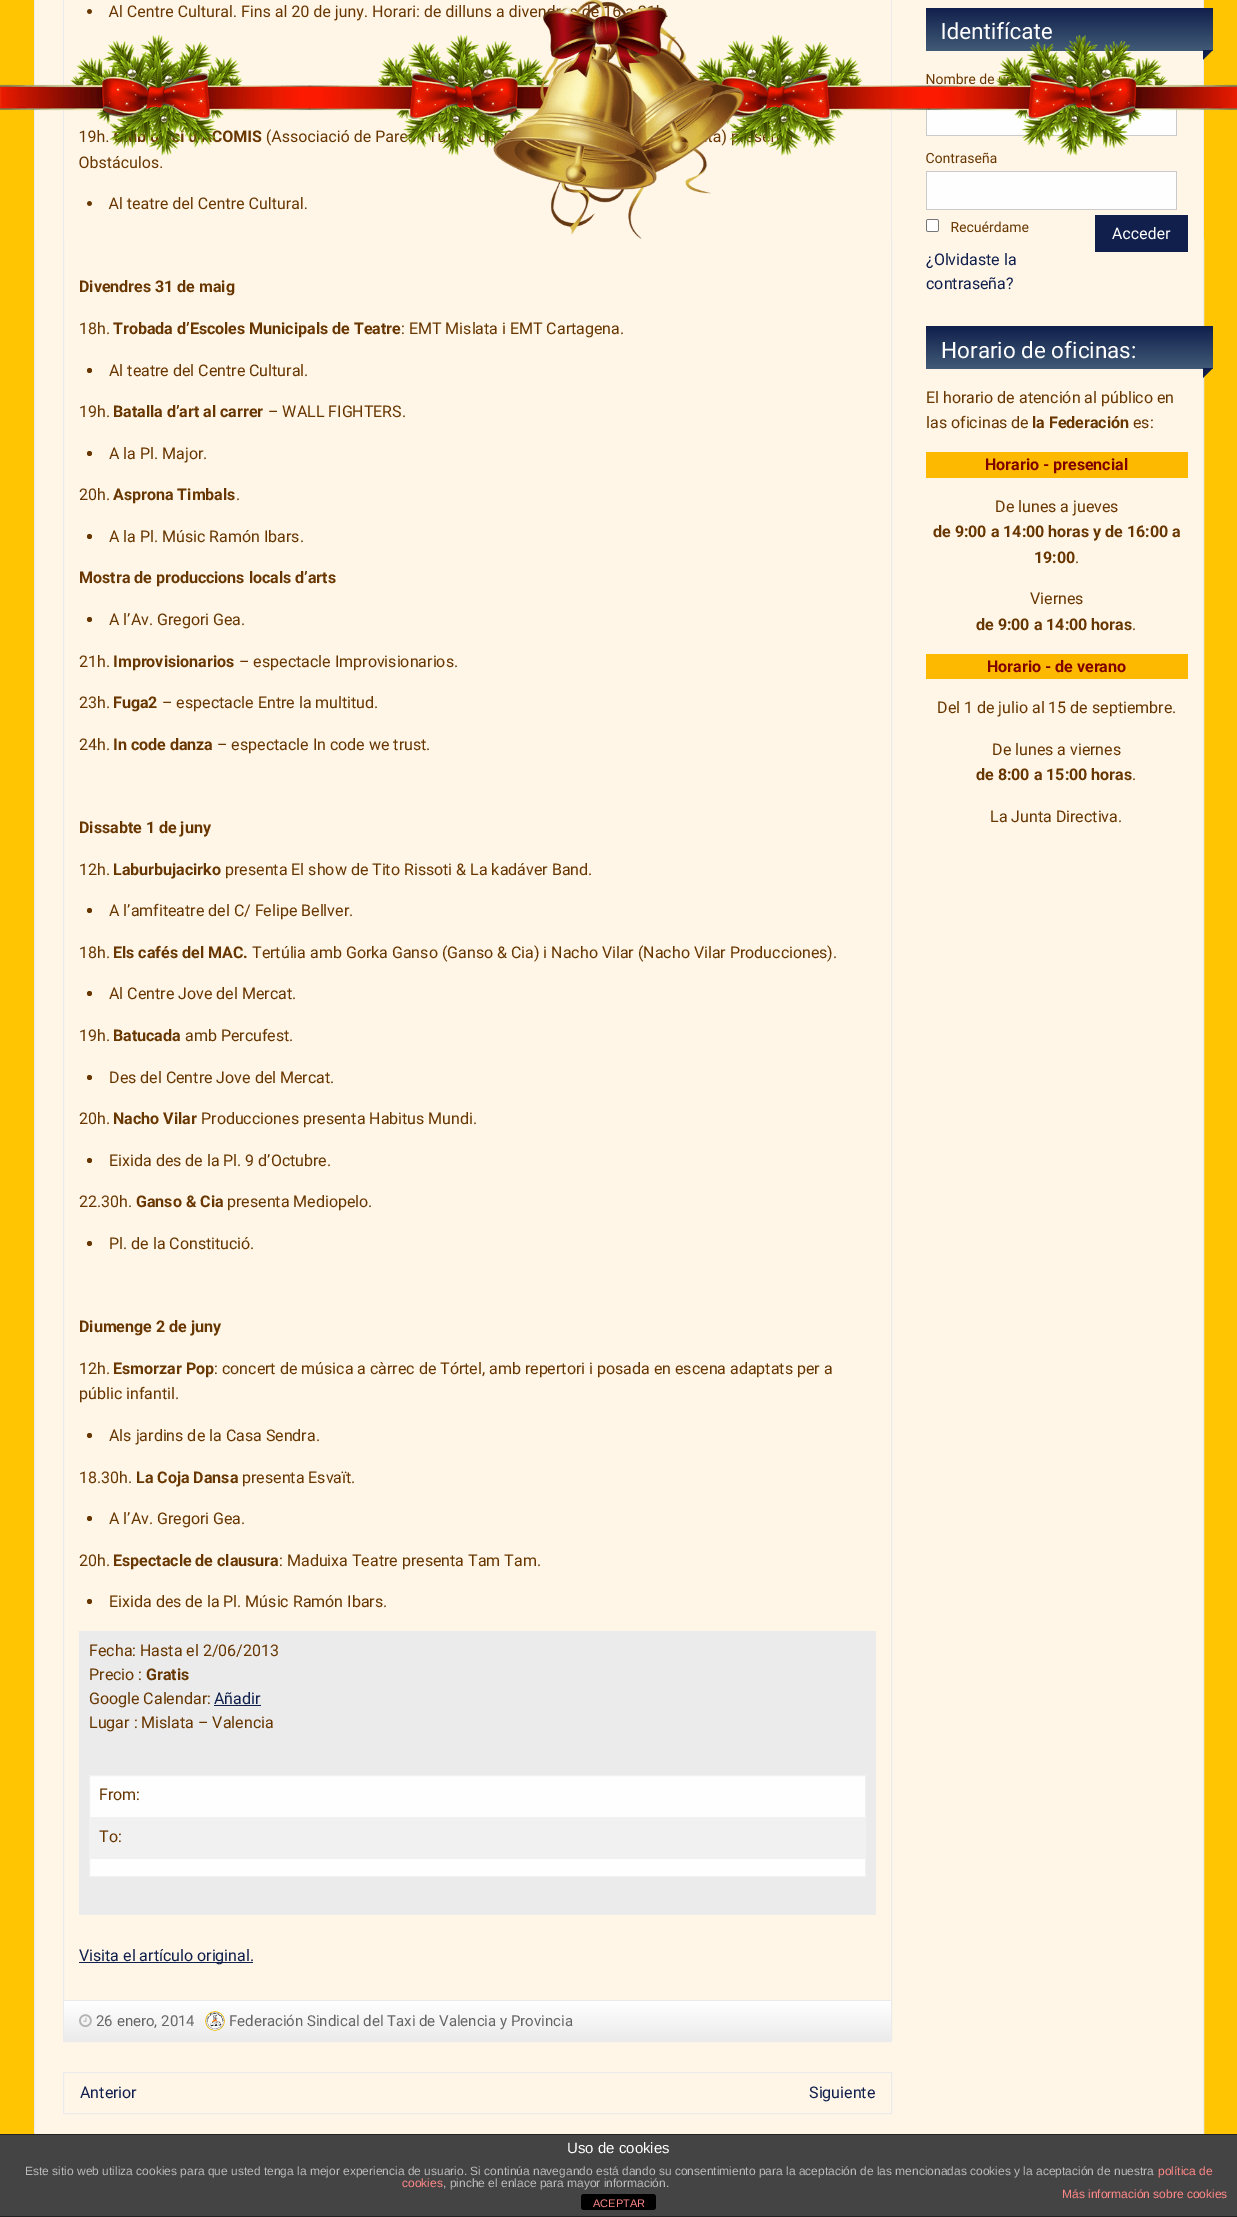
%!PS-Adobe-3.0
%%BoundingBox: 0 0 1237 2217
%%LanguageLevel: 3
%%Pages: 1
%%EndComments
%%BeginProlog
/rrect { 5 dict begin { /r /h /w /y /x } { exch def } forall
  x r add y moveto x w add y 2 copy h add r arct x w add y h add x 1 index r arct
  x y h add x y r arct x y 2 copy exch w add exch r arct closepath end } def
/drawimage { 5 dict begin { /h /w /y /x /name } { exch def } forall
  gsave x y translate w h scale
  w h 8 [w 0 0 h 0 0] name (r) file false 3 colorimage grestore end } def
%%EndProlog
%%BeginSetup
<< /PageSize [1237 2217] >> setpagedevice
%%EndSetup
%%Page: 1 1
0 2217 translate 1 -1 scale
4 setmiterlimit
1 0.773 0.008 setrgbcolor
0 0 1237 2217 rectfill
1 0.965 0.91 setrgbcolor
35 0 1168 2134 rectfill
0.922 setgray
34.5 -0.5 1169 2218 rectstroke
63.5 -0.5 828 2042 rectstroke
0.408 0.212 0 setrgbcolor
newpath 89.5 11.5 2.5 0 360 arc closepath fill
newpath 89.5 203.5 2.5 0 360 arc closepath fill
newpath 89.5 370.5 2.5 0 360 arc closepath fill
newpath 89.5 453.5 2.5 0 360 arc closepath fill
newpath 89.5 536.5 2.5 0 360 arc closepath fill
newpath 89.5 619.5 2.5 0 360 arc closepath fill
newpath 89.5 910.5 2.5 0 360 arc closepath fill
newpath 89.5 993.5 2.5 0 360 arc closepath fill
newpath 89.5 1077.5 2.5 0 360 arc closepath fill
newpath 89.5 1160.5 2.5 0 360 arc closepath fill
newpath 89.5 1243.5 2.5 0 360 arc closepath fill
newpath 89.5 1435.5 2.5 0 360 arc closepath fill
newpath 89.5 1518.5 2.5 0 360 arc closepath fill
newpath 89.5 1601.5 2.5 0 360 arc closepath fill
0.922 setgray
79 1631 797 284 rectfill
0.063 0.122 0.298 setrgbcolor
214 1705 47 1 rectfill
0.996 setgray
newpath 89.5 1775.5 moveto 865.5 1775.5 lineto 865.5 1876.5 lineto 89.5 1876.5 lineto closepath gsave fill grestore
0.945 setgray
stroke
90 1817 775 42 rectfill
0.063 0.122 0.298 setrgbcolor
79 1962 174 1 rectfill
gsave newpath 64 2000 moveto 891 2000 lineto 891 2001 lineto 64 2001 lineto closepath clip newpath
<< /ShadingType 2 /ColorSpace /DeviceRGB /Coords [64 1961 64 2001] /Extend [true true] /Function << /FunctionType 2 /Domain [0 1] /C0 [1 1 1] /C1 [0.922 0.922 0.922] /N 1 >> >> shfill grestore
gsave newpath 64 2001 moveto 891 2001 lineto 891 2041 lineto 64 2041 lineto closepath clip newpath
<< /ShadingType 2 /ColorSpace /DeviceRGB /Coords [64 2001 64 2041] /Extend [true true] /Function << /FunctionType 2 /Domain [0 1] /C0 [1 1 1] /C1 [0.922 0.922 0.922] /N 1 >> >> shfill grestore
(images/2.raw) 79 2014 13 13 drawimage
(images/3.raw) 205 2011 20 20 drawimage
0.922 setgray
63.5 2072.5 828 41 rectstroke
gsave newpath 926 8 moveto 1213 8 lineto 1213 51 lineto 926 51 lineto closepath clip newpath
<< /ShadingType 2 /ColorSpace /DeviceRGB /Coords [926 8 926 51] /Extend [true true] /Function << /FunctionType 2 /Domain [0 1] /C0 [0.063 0.122 0.298] /C1 [0.255 0.357 0.467] /N 1 >> >> shfill grestore
0.063 0.122 0.298 setrgbcolor
newpath 1203 50 moveto 1213 50 lineto 1203 60 lineto closepath fill
0.996 setgray
927 100 249 35 rectfill
0.792 setgray
926.5 97.5 250 38 rectstroke
0.996 setgray
newpath 926.5 171.5 moveto 1176.5 171.5 lineto 1176.5 209.5 lineto 926.5 209.5 lineto closepath gsave fill grestore
0.792 setgray
stroke
1 setgray
926.5 219.5 12 12 1.5 rrect gsave fill grestore
0.463 setgray
stroke
0.063 0.122 0.298 setrgbcolor
1095 215 93 37 rectfill
gsave newpath 926 326 moveto 1213 326 lineto 1213 369 lineto 926 369 lineto closepath clip newpath
<< /ShadingType 2 /ColorSpace /DeviceRGB /Coords [926 326 926 369] /Extend [true true] /Function << /FunctionType 2 /Domain [0 1] /C0 [0.063 0.122 0.298] /C1 [0.255 0.357 0.467] /N 1 >> >> shfill grestore
newpath 1203 368 moveto 1213 368 lineto 1203 378 lineto closepath fill
0.988 0.725 0 setrgbcolor
926 452 262 26 rectfill
926 654 262 25 rectfill
0.267 setgray
0 2135 1237 81 rectfill
0.133 setgray
0 2134 1237 1 rectfill
0 2216 1237 1 rectfill
0 setgray
581 2194 75 16 3 rrect fill
/Roboto-Regular [16 0 0 -16 0 0] selectfont
0.408 0.212 0 setrgbcolor
109 17 moveto (Al Centre Cultural. Fins al 20 de juny. Horari: de dilluns a dive) show
603 17 moveto (1) show
79 142 moveto (19h.) show
/Roboto-Bold [16 0 0 -16 0 0] selectfont
212 142 moveto (COMIS) show
/Roboto-Regular [16 0 0 -16 0 0] selectfont
266 142 moveto (\(Associació de Par) show
713 142 moveto (a\)) show
79 168 moveto (Obstáculos.) show
109 209 moveto (Al teatre del Centre Cultural.) show
/Roboto-Bold [16 0 0 -16 0 0] selectfont
79 292 moveto (Divendres 31 de maig) show
/Roboto-Regular [16 0 0 -16 0 0] selectfont
79 334 moveto (18h.) show
/Roboto-Bold [16 0 0 -16 0 0] selectfont
113 334 moveto (Trobada d’Escoles Municipals de Teatre) show
/Roboto-Regular [16 0 0 -16 0 0] selectfont
401 334 moveto (: EMT Mislata i EMT Cartagena.) show
109 376 moveto (Al teatre del Centre Cultural.) show
79 417 moveto (19h.) show
/Roboto-Bold [16 0 0 -16 0 0] selectfont
113 417 moveto (Batalla d’art al carrer) show
/Roboto-Regular [16 0 0 -16 0 0] selectfont
268 417 moveto (– WALL FIGHTERS.) show
109 459 moveto (A la Pl. Major.) show
79 500 moveto (20h.) show
/Roboto-Bold [16 0 0 -16 0 0] selectfont
113 500 moveto (Asprona Timbals) show
/Roboto-Regular [16 0 0 -16 0 0] selectfont
236 500 moveto (.) show
109 542 moveto (A la Pl. Músic Ramón Ibars.) show
/Roboto-Bold [16 0 0 -16 0 0] selectfont
79 583 moveto (Mostra de produccions locals d’arts) show
/Roboto-Regular [16 0 0 -16 0 0] selectfont
109 625 moveto (A l’Av. Gregori Gea.) show
79 667 moveto (21h.) show
/Roboto-Bold [16 0 0 -16 0 0] selectfont
113 667 moveto (Improvisionarios) show
/Roboto-Regular [16 0 0 -16 0 0] selectfont
239 667 moveto (– espectacle Improvisionarios.) show
79 708 moveto (23h.) show
/Roboto-Bold [16 0 0 -16 0 0] selectfont
113 708 moveto (Fuga2) show
/Roboto-Regular [16 0 0 -16 0 0] selectfont
162 708 moveto (– espectacle Entre la multitud.) show
79 750 moveto (24h.) show
/Roboto-Bold [16 0 0 -16 0 0] selectfont
113 750 moveto (In code danza) show
/Roboto-Regular [16 0 0 -16 0 0] selectfont
217 750 moveto (– espectacle In code we trust.) show
/Roboto-Bold [16 0 0 -16 0 0] selectfont
79 833 moveto (Dissabte 1 de juny) show
/Roboto-Regular [16 0 0 -16 0 0] selectfont
79 875 moveto (12h.) show
/Roboto-Bold [16 0 0 -16 0 0] selectfont
113 875 moveto (Laburbujacirko) show
/Roboto-Regular [16 0 0 -16 0 0] selectfont
225 875 moveto (presenta El show de Tito Rissoti & La kadáver Band.) show
109 916 moveto (A l’amfiteatre del C/ Felipe Bellver.) show
79 958 moveto (18h.) show
/Roboto-Bold [16 0 0 -16 0 0] selectfont
113 958 moveto (Els cafés del MAC.) show
/Roboto-Regular [16 0 0 -16 0 0] selectfont
252 958 moveto (Tertúlia amb Gorka Ganso \(Ganso & Cia\) i Nacho Vilar \(Nacho Vilar Producciones\).) show
109 999 moveto (Al Centre Jove del Mercat.) show
79 1041 moveto (19h.) show
/Roboto-Bold [16 0 0 -16 0 0] selectfont
113 1041 moveto (Batucada) show
/Roboto-Regular [16 0 0 -16 0 0] selectfont
185 1041 moveto (amb Percufest.) show
109 1083 moveto (Des del Centre Jove del Mercat.) show
79 1124 moveto (20h.) show
/Roboto-Bold [16 0 0 -16 0 0] selectfont
113 1124 moveto (Nacho Vilar) show
/Roboto-Regular [16 0 0 -16 0 0] selectfont
201 1124 moveto (Producciones presenta Habitus Mundi.) show
109 1166 moveto (Eixida des de la Pl. 9 d’Octubre.) show
79 1207 moveto (22.30h.) show
/Roboto-Bold [16 0 0 -16 0 0] selectfont
136 1207 moveto (Ganso & Cia) show
/Roboto-Regular [16 0 0 -16 0 0] selectfont
227 1207 moveto (presenta Mediopelo.) show
109 1249 moveto (Pl. de la Constitució.) show
/Roboto-Bold [16 0 0 -16 0 0] selectfont
79 1332 moveto (Diumenge 2 de juny) show
/Roboto-Regular [16 0 0 -16 0 0] selectfont
79 1374 moveto (12h.) show
/Roboto-Bold [16 0 0 -16 0 0] selectfont
113 1374 moveto (Esmorzar Pop) show
/Roboto-Regular [16 0 0 -16 0 0] selectfont
214 1374 moveto (: concert de música a càrrec de Tórtel, amb repertori i posada en escena adaptats per a) show
79 1399 moveto (públic infantil.) show
109 1441 moveto (Als jardins de la Casa Sendra.) show
79 1483 moveto (18.30h.) show
/Roboto-Bold [16 0 0 -16 0 0] selectfont
136 1483 moveto (La Coja Dansa) show
/Roboto-Regular [16 0 0 -16 0 0] selectfont
242 1483 moveto (presenta Esvaït.) show
109 1524 moveto (A l’Av. Gregori Gea.) show
79 1566 moveto (20h.) show
/Roboto-Bold [16 0 0 -16 0 0] selectfont
113 1566 moveto (Espectacle de clausura) show
/Roboto-Regular [16 0 0 -16 0 0] selectfont
279 1566 moveto (: Maduixa Teatre presenta Tam Tam.) show
109 1607 moveto (Eixida des de la Pl. Músic Ramón Ibars.) show
89 1656 moveto (Fecha: Hasta el 2/06/2013) show
89 1680 moveto (Precio :) show
/Roboto-Bold [16 0 0 -16 0 0] selectfont
146 1680 moveto (Gratis) show
/Roboto-Regular [16 0 0 -16 0 0] selectfont
89 1704 moveto (Google Calendar:) show
0.063 0.122 0.298 setrgbcolor
214 1704 moveto (Añadir) show
0.408 0.212 0 setrgbcolor
89 1728 moveto (Lugar : Mislata – Valencia) show
99 1800 moveto (From:) show
99 1842 moveto (To:) show
0.063 0.122 0.298 setrgbcolor
79 1961 moveto (Visita el artículo original.) show
/Roboto-Regular [15 0 0 -15 0 0] selectfont
0.4 setgray
96 2026 moveto (26 enero, 2014) show
229 2026 moveto (Federación Sindical del Taxi de Valencia y Provincia) show
/Roboto-Regular [16 0 0 -16 0 0] selectfont
0.063 0.122 0.298 setrgbcolor
80 2098 moveto (Anterior) show
809 2098 moveto (Siguiente) show
/Roboto-Regular [22.5 0 0 -22.5 0 0] selectfont
1 setgray
941 39 moveto (Identifícate) show
/Roboto-Regular [14 0 0 -14 0 0] selectfont
0.408 0.212 0 setrgbcolor
926 84 moveto (Nombre de) show
926 163 moveto (Contraseña) show
950 232 moveto (Recuérdame) show
/Roboto-Regular [16 0 0 -16 0 0] selectfont
0.063 0.122 0.298 setrgbcolor
926 265 moveto (¿Olvidaste la) show
926 289 moveto (contraseña?) show
1 setgray
1112 239 moveto (Acceder) show
(images/1.raw) 0 0 1237 239 drawimage
/Roboto-Regular [22.5 0 0 -22.5 0 0] selectfont
941 358 moveto (Horario de oficinas:) show
/Roboto-Regular [16 0 0 -16 0 0] selectfont
0.408 0.212 0 setrgbcolor
926 403 moveto (El horario de atención al público en) show
926 428 moveto (las oficinas de) show
/Roboto-Bold [16 0 0 -16 0 0] selectfont
1032 428 moveto (la Federación) show
/Roboto-Regular [16 0 0 -16 0 0] selectfont
1133 428 moveto (es:) show
/Roboto-Bold [16 0 0 -16 0 0] selectfont
0.502 0 0 setrgbcolor
985 470 moveto (Horario - presencial) show
/Roboto-Regular [16 0 0 -16 0 0] selectfont
0.408 0.212 0 setrgbcolor
995 512 moveto (De lunes a jueves) show
/Roboto-Bold [16 0 0 -16 0 0] selectfont
933 537 moveto (de 9:00 a 14:00 horas y de 16:00 a) show
1034 563 moveto (19:00) show
/Roboto-Regular [16 0 0 -16 0 0] selectfont
1075 563 moveto (.) show
1030 604 moveto (Viernes) show
/Roboto-Bold [16 0 0 -16 0 0] selectfont
976 630 moveto (de 9:00 a 14:00 horas) show
/Roboto-Regular [16 0 0 -16 0 0] selectfont
1132 630 moveto (.) show
/Roboto-Bold [16 0 0 -16 0 0] selectfont
0.502 0 0 setrgbcolor
987 672 moveto (Horario - de verano) show
/Roboto-Regular [16 0 0 -16 0 0] selectfont
0.408 0.212 0 setrgbcolor
937 713 moveto (Del 1 de julio al 15 de septiembre.) show
992 755 moveto (De lunes a viernes) show
/Roboto-Bold [16 0 0 -16 0 0] selectfont
976 780 moveto (de 8:00 a 15:00 horas) show
/Roboto-Regular [16 0 0 -16 0 0] selectfont
1132 780 moveto (.) show
990 822 moveto (La Junta Directiva.) show
/LiberationSans-Regular [15 0 0 -15 0 0] selectfont
1 setgray
567 2153 moveto (Uso de cookies) show
/LiberationSans-Regular [12 0 0 -12 0 0] selectfont
0.733 setgray
25 2175 moveto (Este sitio web utiliza cookies para que usted tenga la mejor experiencia de usuario. Si continúa navegando está dando su consentimiento para la aceptación de las mencionadas cookies y la aceptación de nuestra) show
1 0.533 0.533 setrgbcolor
1158 2175 moveto (política de) show
402 2187 moveto (cookies) show
0.733 setgray
443 2187 moveto (, pinche el enlace para mayor información.) show
1 0.533 0.533 setrgbcolor
1062 2198 moveto (Más información sobre cookies) show
/LiberationSans-Regular [11 0 0 -11 0 0] selectfont
593 2207 moveto (ACEPTAR) show
showpage
%%EOF
